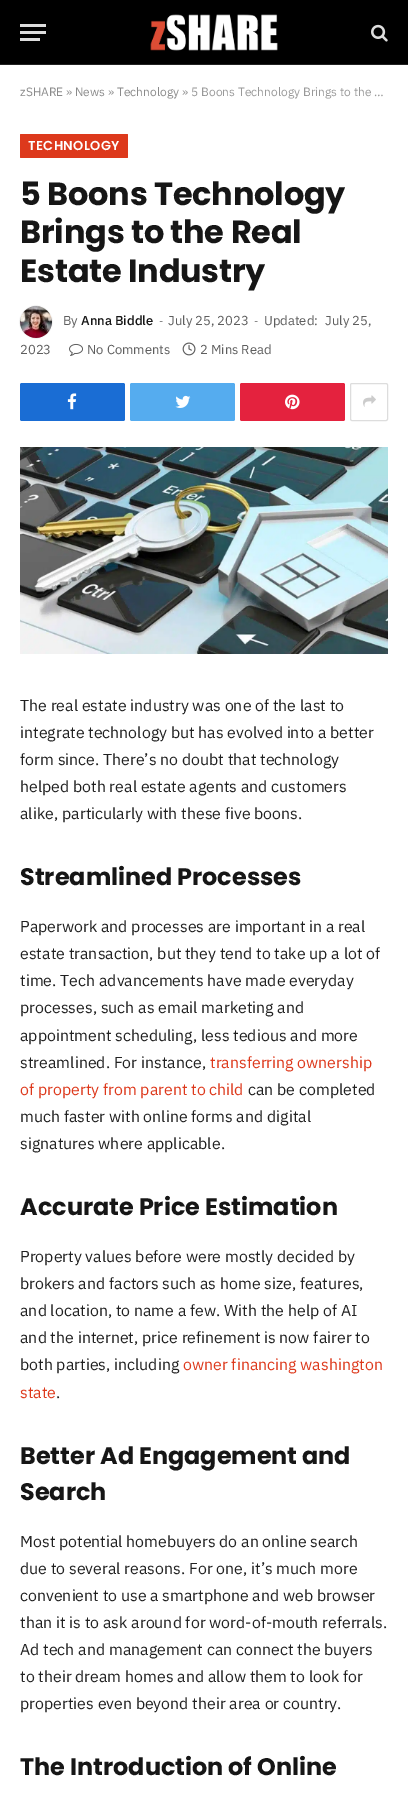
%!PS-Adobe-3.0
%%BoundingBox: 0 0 408 1806
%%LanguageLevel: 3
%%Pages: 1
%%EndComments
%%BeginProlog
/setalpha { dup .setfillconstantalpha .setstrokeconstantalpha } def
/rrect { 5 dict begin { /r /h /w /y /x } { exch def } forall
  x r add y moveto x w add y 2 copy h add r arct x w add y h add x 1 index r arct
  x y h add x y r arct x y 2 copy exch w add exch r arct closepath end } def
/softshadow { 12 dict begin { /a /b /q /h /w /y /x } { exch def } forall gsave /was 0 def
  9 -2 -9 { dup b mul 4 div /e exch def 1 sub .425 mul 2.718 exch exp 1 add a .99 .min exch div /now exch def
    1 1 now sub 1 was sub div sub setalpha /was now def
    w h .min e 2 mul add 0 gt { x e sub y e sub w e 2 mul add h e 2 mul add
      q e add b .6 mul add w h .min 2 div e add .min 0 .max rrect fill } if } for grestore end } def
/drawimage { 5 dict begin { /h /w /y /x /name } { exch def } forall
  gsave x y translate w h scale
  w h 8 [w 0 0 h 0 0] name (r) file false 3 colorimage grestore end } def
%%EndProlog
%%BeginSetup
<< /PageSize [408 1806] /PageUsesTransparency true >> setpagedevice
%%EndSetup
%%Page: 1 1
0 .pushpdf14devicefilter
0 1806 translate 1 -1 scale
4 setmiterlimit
1 setgray
0 0 408 1806 rectfill
0 setgray
0 0 408 64 rectfill
0.133 setgray
0 64 408 1 rectfill
0.867 setgray
20 38 20 3 rectfill
20 24 26 3 rectfill
20 31 26 3 rectfill
(images/1.raw) 150 14 128 37 drawimage
(images/2.raw) 371 24 17 18 drawimage
0.867 0.224 0.11 setrgbcolor
20 134 108 24 1 rrect fill
0 setgray
20 306 32 32 16 0.5 0.2 softshadow
(images/3.raw) 20 306 32 32 drawimage
(images/4.raw) 69 343 14 13 drawimage
(images/5.raw) 182 342 14 14 drawimage
0.102 0.427 0.831 setrgbcolor
20 383 105 38 2 rrect fill
(images/6.raw) 67 393 10 17 drawimage
0.333 0.675 0.937 setrgbcolor
130 383 105 38 2 rrect fill
(images/7.raw) 175 395 16 13 drawimage
0.894 0.133 0.243 setrgbcolor
240 383 105 38 2 rrect fill
(images/8.raw) 285 394 15 16 drawimage
0.867 setgray
350.5 383.5 37 37 1.5 rrect stroke
(images/9.raw) 363 395 13 12 drawimage
(images/10.raw) 20 447 368 207 drawimage
/IBMPlexSans-Regular [12 0 0 -12 0 0] selectfont
0.541 setgray
20 96 moveto (zSHARE) show
0.6 setgray
66 96 moveto (») show
0.541 setgray
75 96 moveto (News) show
0.6 setgray
108 96 moveto (») show
0.541 setgray
117 96 moveto (Technology) show
0.6 setgray
182 96 moveto (» 5 Boons Technology Brings to the …) show
/Poppins-SemiBold [13 0 0 -13 0 0] selectfont
1 setgray
28 150 moveto 0.4 0 (TECHNOLOGY) ashow
/Poppins-Bold [32 0 0 -32 0 0] selectfont
0.086 setgray
20 205 moveto -0.2 0 (5 Boons Technology) ashow
20 243 moveto -0.2 0 (Brings to the Real) ashow
20 282 moveto -0.2 0 (Estate Industry) ashow
/IBMPlexSans-Regular [11 0 0 -11 0 0] selectfont
0.369 setgray
254 325 moveto (-) show
/IBMPlexSans-Regular [13 0 0 -13 0 0] selectfont
264 325 moveto (Updated:) show
325 325 moveto (July 25,) show
20 354 moveto (2023) show
63 325 moveto (By) show
/IBMPlexSans-Medium [13 0 0 -13 0 0] selectfont
0.086 setgray
81 325 moveto (Anna Biddle) show
/IBMPlexSans-Regular [11 0 0 -11 0 0] selectfont
0.369 setgray
159 325 moveto (-) show
/IBMPlexSans-Regular [13 0 0 -13 0 0] selectfont
168 325 moveto (July 25, 2023) show
87 354 moveto (No Comments) show
200 354 moveto (2 Mins Read) show
/IBMPlexSans-Regular [15.9 0 0 -15.9 0 0] selectfont
0.129 setgray
20 711 moveto (The real estate industry was one of the last to) show
20 738 moveto (integrate technology but has evolved into a better) show
20 765 moveto (form since. There’s no doubt that technology) show
20 792 moveto (helped both real estate agents and customers) show
20 819 moveto (alike, particularly with these five boons.) show
/Poppins-Bold [23.9 0 0 -23.9 0 0] selectfont
0.086 setgray
20 885 moveto (Streamlined Processes) show
/IBMPlexSans-Regular [15.9 0 0 -15.9 0 0] selectfont
0.129 setgray
20 932 moveto (Paperwork and processes are important in a real) show
20 959 moveto (estate transaction, but they tend to take up a lot of) show
20 986 moveto (time. Tech advancements have made everyday) show
20 1013 moveto (processes, such as email marketing and) show
20 1041 moveto (appointment scheduling, less tedious and more) show
20 1068 moveto (streamlined. For instance,) show
0.867 0.224 0.11 setrgbcolor
210 1068 moveto (transferring ownership) show
20 1095 moveto (of property from parent to child) show
0.129 setgray
248 1095 moveto (can be completed) show
20 1122 moveto (much faster with online forms and digital) show
20 1149 moveto (signatures where applicable.) show
/Poppins-Bold [23.9 0 0 -23.9 0 0] selectfont
0.086 setgray
20 1215 moveto (Accurate Price Estimation) show
/IBMPlexSans-Regular [15.9 0 0 -15.9 0 0] selectfont
0.129 setgray
20 1262 moveto (Property values before were mostly decided by) show
20 1289 moveto (brokers and factors such as home size, features,) show
20 1316 moveto (and location, to name a few. With the help of AI) show
20 1343 moveto (and the internet, price refinement is now fairer to) show
20 1370 moveto (both parties, including) show
0.867 0.224 0.11 setrgbcolor
183 1370 moveto (owner financing washington) show
20 1398 moveto (state) show
0.129 setgray
56 1398 moveto (.) show
/Poppins-Bold [23.9 0 0 -23.9 0 0] selectfont
0.086 setgray
20 1464 moveto (Better Ad Engagement and) show
20 1500 moveto (Search) show
/IBMPlexSans-Regular [15.9 0 0 -15.9 0 0] selectfont
0.129 setgray
20 1547 moveto (Most potential homebuyers do an online search) show
20 1574 moveto (due to several reasons. For one, it’s much more) show
20 1601 moveto (convenient to use a smartphone and web browser) show
20 1628 moveto (than it is to ask around for word-of-mouth referrals.) show
20 1655 moveto (Ad tech and management can connect the buyers) show
20 1682 moveto (to their dream homes and allow them to look for) show
20 1709 moveto (properties even beyond their area or country.) show
/Poppins-Bold [23.9 0 0 -23.9 0 0] selectfont
0.086 setgray
20 1775 moveto (The Introduction of Online) show
.poppdf14devicefilter showpage
%%EOF
